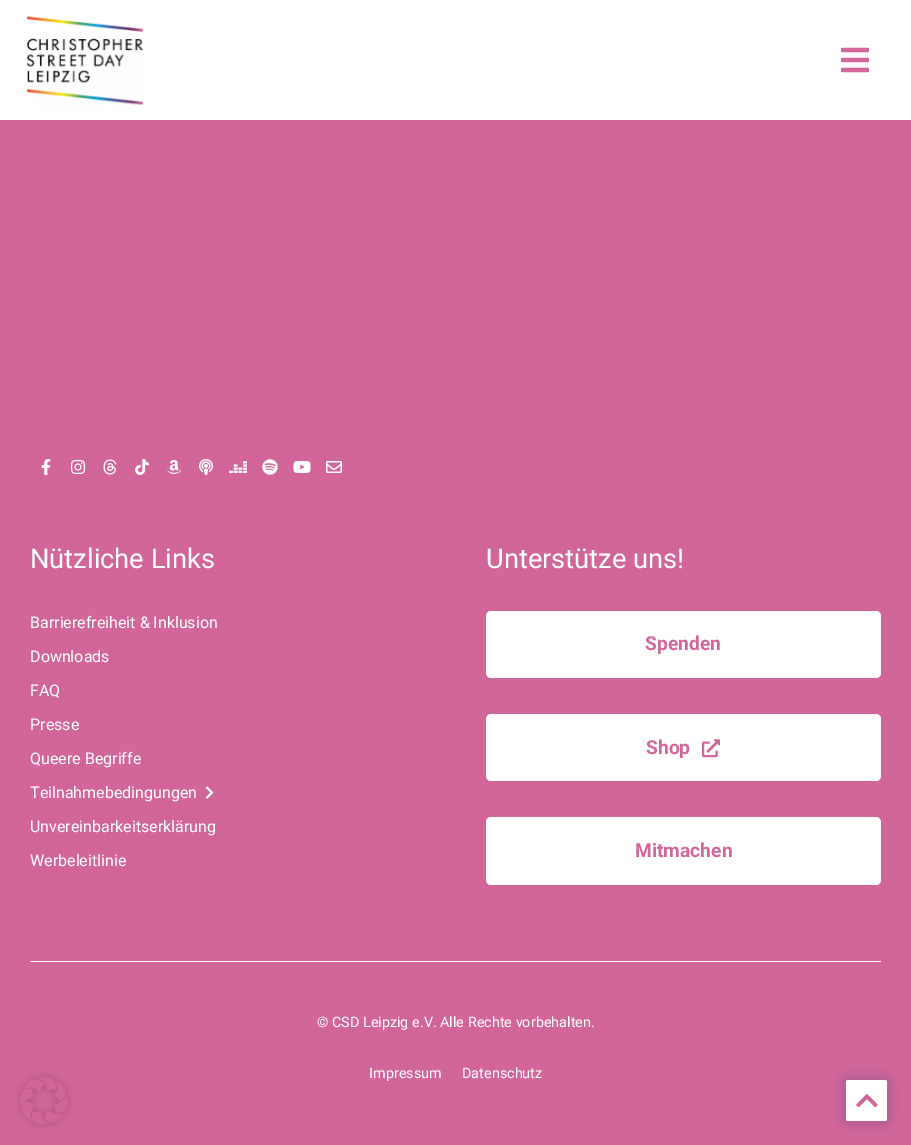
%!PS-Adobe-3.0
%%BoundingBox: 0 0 911 1145
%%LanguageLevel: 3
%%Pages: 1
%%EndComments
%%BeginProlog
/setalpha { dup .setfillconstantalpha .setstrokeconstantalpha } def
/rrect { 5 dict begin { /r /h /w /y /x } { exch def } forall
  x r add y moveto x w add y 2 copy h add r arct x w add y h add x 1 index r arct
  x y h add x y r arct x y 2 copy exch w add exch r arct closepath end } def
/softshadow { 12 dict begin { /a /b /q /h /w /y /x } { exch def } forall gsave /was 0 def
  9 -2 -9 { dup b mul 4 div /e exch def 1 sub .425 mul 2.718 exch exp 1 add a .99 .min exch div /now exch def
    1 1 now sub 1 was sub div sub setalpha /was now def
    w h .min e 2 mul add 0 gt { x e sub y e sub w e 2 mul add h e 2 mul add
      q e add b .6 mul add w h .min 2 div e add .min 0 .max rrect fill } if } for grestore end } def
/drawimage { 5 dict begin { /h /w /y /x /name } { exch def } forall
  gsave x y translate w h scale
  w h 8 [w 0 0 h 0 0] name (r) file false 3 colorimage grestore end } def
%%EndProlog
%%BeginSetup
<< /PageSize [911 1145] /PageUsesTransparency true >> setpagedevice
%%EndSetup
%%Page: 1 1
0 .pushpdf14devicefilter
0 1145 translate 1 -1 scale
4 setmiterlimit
0.824 0.4 0.604 setrgbcolor
0 0 911 1145 rectfill
1 setgray
0 0 911 120 rectfill
(images/1.raw) 26 16 118 90 drawimage
(images/2.raw) 841 47 28 26 drawimage
(images/3.raw) 41 459 10 16 drawimage
(images/4.raw) 71 460 14 14 drawimage
(images/5.raw) 103 459 14 16 drawimage
(images/6.raw) 135 459 14 16 drawimage
(images/7.raw) 167 460 14 14 drawimage
(images/8.raw) 199 459 14 16 drawimage
(images/9.raw) 229 461 18 12 drawimage
(images/10.raw) 262 459 16 16 drawimage
(images/11.raw) 293 461 18 12 drawimage
(images/12.raw) 326 461 16 12 drawimage
(images/13.raw) 205 786 9 13 drawimage
486 611 395 67 5 rrect fill
486 714 395 67 5 rrect fill
(images/14.raw) 702 739 18 19 drawimage
486 817 395 68 5 rrect fill
30 961 851 1 rectfill
0.078 0.184 0.494 setrgbcolor
841 1075 51 51 7 5 0.17 softshadow
1 setgray
846 1080 41 41 2 rrect fill
(images/15.raw) 856 1094 22 14 drawimage
(images/16.raw) 15 1072 57 57 drawimage
/Roboto-Regular [27.25 0 0 -27.25 0 0] selectfont
30 568 moveto (Nützliche Links) show
/Roboto-Regular [16 0 0 -16 0 0] selectfont
30 628 moveto (Barrierefreiheit & Inklusion) show
30 662 moveto (Downloads) show
30 696 moveto (FAQ) show
30 730 moveto (Presse) show
30 764 moveto (Queere Begriffe) show
30 798 moveto (Teilnahmebedingungen) show
30 832 moveto (Unvereinbarkeitserklärung) show
30 866 moveto (Werbeleitlinie) show
/Roboto-Regular [27.25 0 0 -27.25 0 0] selectfont
486 568 moveto (Unterstütze uns!) show
/Roboto-Bold [19.25 0 0 -19.25 0 0] selectfont
0.824 0.4 0.604 setrgbcolor
645 650 moveto (Spenden) show
646 754 moveto (Shop) show
635 857 moveto (Mitmachen) show
/Roboto-Regular [14.4 0 0 -14.4 0 0] selectfont
1 setgray
317 1027 moveto (© CSD Leipzig e.V. Alle Rechte vorbehalten.) show
369 1078 moveto (Impressum) show
462 1078 moveto (Datenschutz) show
.poppdf14devicefilter showpage
%%EOF
